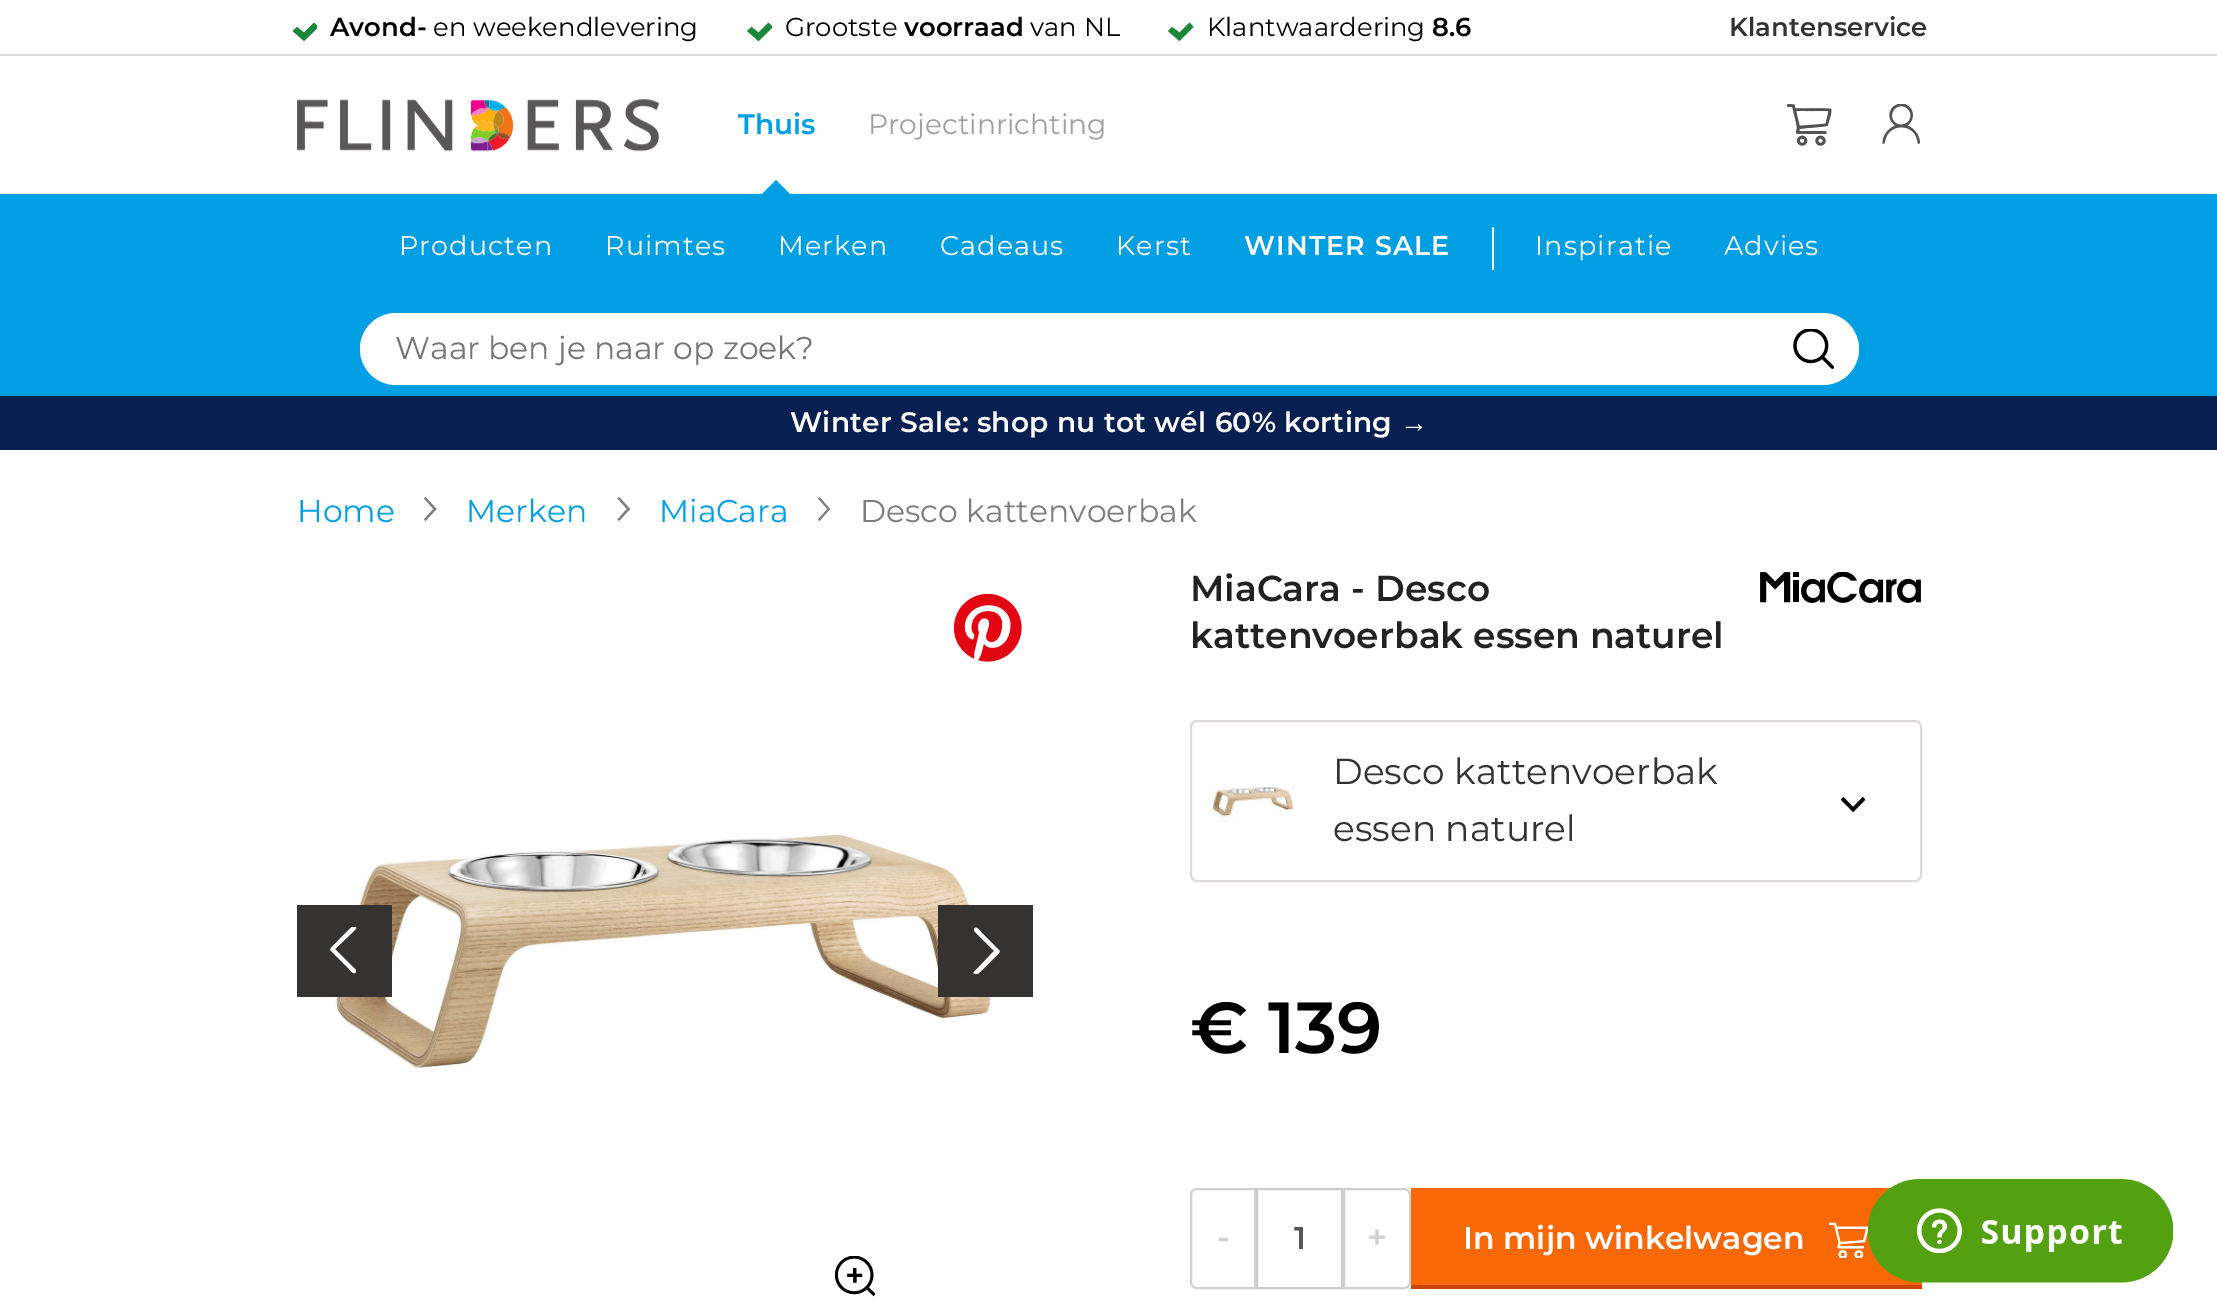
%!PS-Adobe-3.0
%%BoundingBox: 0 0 2217 1312
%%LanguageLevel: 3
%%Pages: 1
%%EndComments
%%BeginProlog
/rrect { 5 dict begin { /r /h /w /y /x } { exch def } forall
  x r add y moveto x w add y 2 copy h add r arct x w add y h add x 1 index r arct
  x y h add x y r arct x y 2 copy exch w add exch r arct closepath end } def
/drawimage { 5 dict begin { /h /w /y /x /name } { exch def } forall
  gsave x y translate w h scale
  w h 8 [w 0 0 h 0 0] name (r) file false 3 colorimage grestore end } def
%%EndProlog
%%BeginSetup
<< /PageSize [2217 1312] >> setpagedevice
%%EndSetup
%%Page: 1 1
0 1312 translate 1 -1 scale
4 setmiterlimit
1 setgray
0 0 2217 1312 rectfill
0.871 0.855 0.855 setrgbcolor
0 54 2217 2 rectfill
gsave
293 23 24 20 rectclip
0.098 0.529 0.216 setrgbcolor
newpath 304 41 moveto 292.5 31 lineto 297 27 lineto 304 32.5 lineto 314 22.5 lineto 318.5 27 lineto closepath fill
grestore
gsave
747 23 25 20 rectclip
0.098 0.529 0.216 setrgbcolor
newpath 758.5 41 moveto 747 31 lineto 751.5 27 lineto 758.5 32.5 lineto 768.5 22.5 lineto 773 27 lineto closepath fill
grestore
0.098 0.529 0.216 setrgbcolor
newpath 1179.5 41 moveto 1168 31 lineto 1172 27 lineto 1179.5 32.5 lineto 1189.5 22.5 lineto 1193.5 27 lineto closepath fill
(images/1.raw) 297 99 362 53 drawimage
0 0.62 0.886 setrgbcolor
0 194 2217 202 rectfill
newpath 794 198 moveto 758 198 lineto 776 180 lineto closepath fill
(images/2.raw) 1787 104 45 42 drawimage
(images/3.raw) 1882 104 38 40 drawimage
1 setgray
1492 227 2 43 rectfill
360 313 1499 72 36 rrect fill
(images/4.raw) 1793 329 41 40 drawimage
0.031 0.122 0.318 setrgbcolor
0 396 2217 54 rectfill
0.494 0.49 0.49 setrgbcolor
newpath 425.5 497 moveto 436.5 509 lineto 425.5 521 lineto 424 519.5 lineto 433.5 509 lineto 424 498.5 lineto closepath fill
newpath 619 497 moveto 630 509 lineto 619 521 lineto 617.5 519.5 lineto 627 509 lineto 617.5 498.5 lineto closepath fill
newpath 819.5 497 moveto 830 509 lineto 819.5 521 lineto 818 519.5 lineto 827.5 509 lineto 818 498.5 lineto closepath fill
(images/5.raw) 953 593 69 69 drawimage
(images/6.raw) 335 832 656 237 drawimage
(images/7.raw) 835 1256 40 41 drawimage
0.204 0.2 0.196 setrgbcolor
297 905 95 92 rectfill
gsave
322 927 47 47 rectclip
1 setgray
newpath 331 951 moveto 349 969 lineto 349 969 354 976 356 972 curveto 356 970 lineto 335 949 lineto 356 929 lineto 357 927 355 925 353 926 curveto 352 926 333 946 331 948 curveto 330 949 330 950 331 951 curveto closepath fill
grestore
938 905 95 92 rectfill
gsave
963 927 47 47 rectclip
1 setgray
newpath 999 950 moveto 981 932 lineto 980 931 976 925 974 929 curveto 974 931 lineto 994 951 lineto 974 972 lineto 973 973 974 975 976 975 curveto 978 975 997 955 999 953 curveto 1000 952 1000 951 999 950 curveto closepath fill
grestore
(images/8.raw) 1760 572 161 31 drawimage
0.871 0.855 0.855 setrgbcolor
2 setlinewidth
1191 721 730 160 6 rrect stroke
(images/9.raw) 1208 785 87 38 drawimage
(images/10.raw) 1841 797 24 16 drawimage
0.816 setgray
newpath 1197 1189 moveto 1255 1189 lineto 1255 1288 lineto 1197 1288 lineto 1193.5 1288 1191 1285.5 1191 1282 curveto 1191 1195 lineto 1191 1191.5 1193.5 1189 1197 1189 curveto closepath stroke
0.8 setgray
1257 1189 85 99 rectstroke
0.816 setgray
newpath 1344 1189 moveto 1404 1189 lineto 1407.5 1189 1410 1191.5 1410 1195 curveto 1410 1282 lineto 1410 1285.5 1407.5 1288 1404 1288 curveto 1344 1288 lineto closepath stroke
0.796 0.263 0 setrgbcolor
newpath 1411 1285 moveto 1411 1289 lineto 1922 1289 lineto 1922 1193 lineto 1922 1285 lineto closepath fill
0.976 0.408 0.027 setrgbcolor
1411 1188 511 97 rectfill
(images/11.raw) 1829 1222 39 36 drawimage
(images/12.raw) 1867 1179 307 104 drawimage
/Montserrat-SemiBold [25.9 0 0 -25.9 0 0] selectfont
0 setgray
330 36 moveto (Avond-) show
/Montserrat-Regular [25.9 0 0 -25.9 0 0] selectfont
433 36 moveto (en weekendlevering) show
785 36 moveto (Grootste) show
/Montserrat-SemiBold [25.9 0 0 -25.9 0 0] selectfont
904 36 moveto (voorraad) show
/Montserrat-Regular [25.9 0 0 -25.9 0 0] selectfont
1030 36 moveto (van NL) show
1207 36 moveto (Klantwaardering) show
/Montserrat-SemiBold [25.9 0 0 -25.9 0 0] selectfont
1432 36 moveto (8.6) show
0.2 setgray
1729 36 moveto (Klantenservice) show
/Montserrat-SemiBold [28.1 0 0 -28.1 0 0] selectfont
0 0.62 0.886 setrgbcolor
738 134 moveto (Thuis) show
/Montserrat-Regular [28.1 0 0 -28.1 0 0] selectfont
0.627 setgray
868 134 moveto (Projectinrichting) show
/Montserrat-Regular [27 0 0 -27 0 0] selectfont
1 setgray
399 255 moveto 1.1 0 (Producten) ashow
605 255 moveto 1.1 0 (Ruimtes) ashow
778 255 moveto 1.1 0 (Merken) ashow
940 255 moveto 1.1 0 (Cadeaus) ashow
1116 255 moveto 1.1 0 (Kerst) ashow
/Montserrat-SemiBold [27 0 0 -27 0 0] selectfont
1244 255 moveto 1.1 0 (WINTER SALE) ashow
/Montserrat-Regular [27 0 0 -27 0 0] selectfont
1535 255 moveto 1.1 0 (Inspiratie) ashow
1724 255 moveto 1.1 0 (Advies) ashow
/Montserrat-Regular [31.5 0 0 -31.5 0 0] selectfont
0.459 setgray
395 359 moveto (Waar ben je naar op zoek?) show
/Montserrat-SemiBold [28.1 0 0 -28.1 0 0] selectfont
1 setgray
790 432 moveto 0.25 0 (Winter Sale: shop nu tot wél 60% korting) ashow
/LiberationSans-Bold [28.1 0 0 -28.1 0 0] selectfont
1400 432 moveto 0.25 0 (→) ashow
/Montserrat-Regular [31.5 0 0 -31.5 0 0] selectfont
0 0.62 0.886 setrgbcolor
297 522 moveto (Home) show
466 522 moveto (Merken) show
659 522 moveto (MiaCara) show
0.494 0.49 0.49 setrgbcolor
860 522 moveto (Desco kattenvoerbak) show
/Montserrat-SemiBold [36 0 0 -36 0 0] selectfont
0.133 setgray
1190 601 moveto (MiaCara - Desco) show
1190 648 moveto (kattenvoerbak essen naturel) show
/Montserrat-Regular [36 0 0 -36 0 0] selectfont
0.2 setgray
1333 784 moveto (Desco kattenvoerbak) show
1333 841 moveto (essen naturel) show
/Montserrat-SemiBold [72 0 0 -72 0 0] selectfont
0 setgray
1190 1053 moveto (€ 139) show
/Montserrat-SemiBold [34 0 0 -34 0 0] selectfont
0.816 setgray
1217 1249 moveto (-) show
/Montserrat-SemiBold [31.5 0 0 -31.5 0 0] selectfont
0.333 setgray
1294 1249 moveto (1) show
/Montserrat-SemiBold [34 0 0 -34 0 0] selectfont
0.816 setgray
1367 1249 moveto (+) show
/Montserrat-SemiBold [31.5 0 0 -31.5 0 0] selectfont
1 setgray
1463 1249 moveto (In mijn winkelwagen) show
showpage
%%EOF
